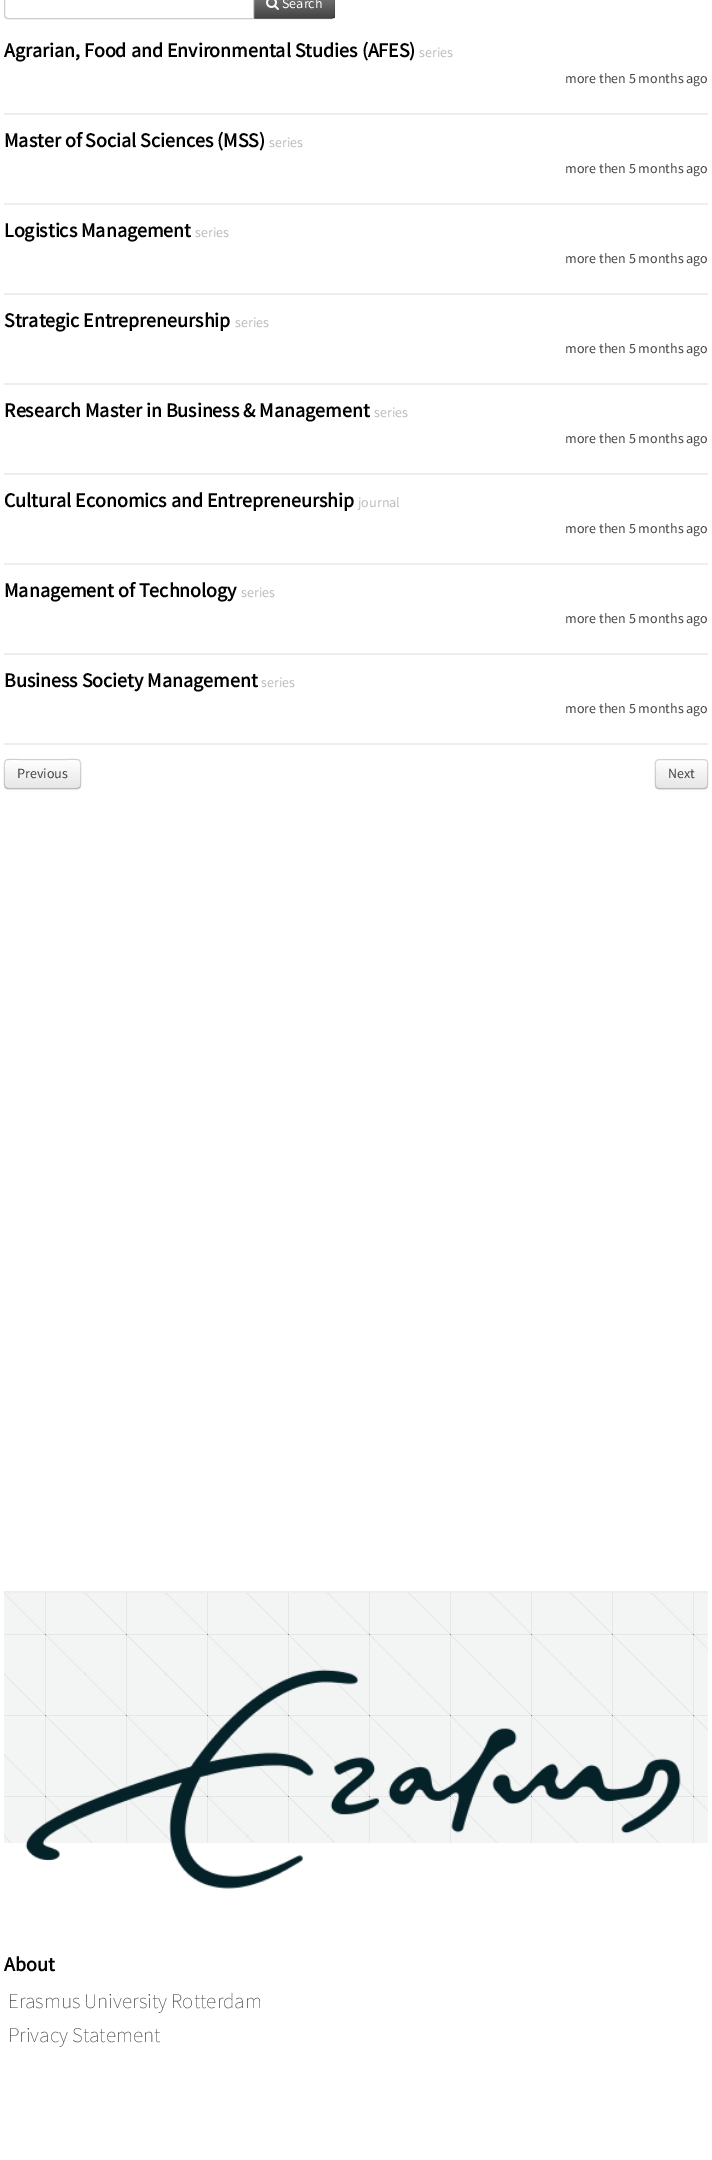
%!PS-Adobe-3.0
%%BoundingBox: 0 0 712 2160
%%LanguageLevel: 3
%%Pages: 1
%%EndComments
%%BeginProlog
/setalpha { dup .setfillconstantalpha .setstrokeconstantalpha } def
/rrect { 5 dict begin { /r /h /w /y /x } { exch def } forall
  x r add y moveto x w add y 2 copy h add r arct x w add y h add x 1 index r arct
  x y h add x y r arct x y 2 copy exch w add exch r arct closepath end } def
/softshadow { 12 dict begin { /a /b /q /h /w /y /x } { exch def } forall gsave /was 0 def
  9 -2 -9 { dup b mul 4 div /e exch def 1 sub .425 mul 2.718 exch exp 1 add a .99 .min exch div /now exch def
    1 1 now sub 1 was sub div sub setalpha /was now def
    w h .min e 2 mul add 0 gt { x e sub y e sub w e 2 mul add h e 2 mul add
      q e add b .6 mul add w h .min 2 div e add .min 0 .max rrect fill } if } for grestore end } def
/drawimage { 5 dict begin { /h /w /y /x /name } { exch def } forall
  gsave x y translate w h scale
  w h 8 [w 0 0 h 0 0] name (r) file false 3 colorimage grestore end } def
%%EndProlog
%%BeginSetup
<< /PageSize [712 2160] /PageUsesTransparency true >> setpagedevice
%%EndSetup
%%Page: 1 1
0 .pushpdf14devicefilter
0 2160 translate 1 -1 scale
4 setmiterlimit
1 setgray
0 0 712 2160 rectfill
0 setgray
253 -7 82 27 4 1 0.05 softshadow
0.498 setgray
newpath 253 -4 moveto 331 -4 lineto 333 -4 335 -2 335 0 curveto 335 15 lineto 335 17 333 19 331 19 curveto 253 19 lineto closepath fill
gsave
newpath 253 -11 moveto 331 -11 lineto 333 -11 335 -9 335 -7 curveto 335 15 lineto 335 17 333 19 331 19 curveto 253 19 lineto closepath clip newpath
gsave newpath 254 0 moveto 335 0 lineto 335 18 lineto 254 18 lineto closepath clip newpath
<< /ShadingType 2 /ColorSpace /DeviceRGB /Coords [294 -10 294 18] /Extend [true true] /Function << /FunctionType 2 /Domain [0 1] /C0 [0.518 0.518 0.518] /C1 [0.267 0.267 0.267] /N 1 >> >> shfill grestore
grestore
0.1 setalpha
0 setgray
newpath 335 15 moveto 335 -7 lineto 335 -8 334.5 -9 334 -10 curveto 333 -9 lineto 334 -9 334 -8 334 -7 curveto 334 15 lineto 334 16 334 17 333 17 curveto 334 18 lineto 334.5 17 335 16 335 15 curveto closepath fill
0.25 setalpha
newpath 331 19 moveto 334 18 lineto 333 17 lineto 332 18 lineto 254 18 lineto 253 19 lineto closepath fill
1 setalpha
1 setgray
newpath 8 -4.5 moveto 253.5 -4.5 lineto 253.5 18.5 lineto 8 18.5 lineto 6 18.5 4.5 17 4.5 15 curveto 4.5 -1 lineto 4.5 -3 6 -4.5 8 -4.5 curveto closepath gsave fill grestore
0.8 setgray
stroke
(images/1.raw) 266 0 13 10 drawimage
0.933 setgray
4 113 704 2 rectfill
4 203 704 2 rectfill
4 293 704 2 rectfill
4 383 704 2 rectfill
4 473 704 2 rectfill
4 563 704 2 rectfill
4 653 704 2 rectfill
4 743 704 2 rectfill
0 setgray
4 760 77 30 4 1 0.05 softshadow
0.961 setgray
4 759 77 30 4 rrect fill
gsave
4 759 77 30 4 rrect clip newpath
gsave newpath 4 760 moveto 81 760 lineto 81 788 lineto 4 788 lineto closepath clip newpath
<< /ShadingType 2 /ColorSpace /DeviceRGB /Coords [43 760 43 788] /Extend [true true] /Function << /FunctionType 2 /Domain [0 1] /C0 [1 1 1] /C1 [0.902 0.902 0.902] /N 1 >> >> shfill grestore
grestore
0.25 setalpha
0 setgray
newpath 79.5 787.5 moveto 77.5 788.5 lineto 7.5 788.5 lineto 5.5 787.5 lineto stroke
0.15 setalpha
newpath 5.5 787.5 moveto 3.5 785.5 4.5 777 4.5 774 curveto 4.5 757.5 2 759.5 19.5 759.5 curveto 65.5 759.5 lineto 83 759.5 80.5 757.5 80.5 774 curveto 80.5 777 81.5 785.5 79.5 787.5 curveto stroke
1 setalpha
655 760 53 30 4 1 0.05 softshadow
0.961 setgray
655 759 53 30 4 rrect fill
gsave
655 759 53 30 4 rrect clip newpath
gsave newpath 655 760 moveto 708 760 lineto 708 788 lineto 655 788 lineto closepath clip newpath
<< /ShadingType 2 /ColorSpace /DeviceRGB /Coords [682 760 682 788] /Extend [true true] /Function << /FunctionType 2 /Domain [0 1] /C0 [1 1 1] /C1 [0.902 0.902 0.902] /N 1 >> >> shfill grestore
grestore
1 setgray
newpath 659 761 moveto 704 761 lineto 706 761 707 762 707 764 curveto 707 758 701 760 696 760 curveto 666 760 lineto 662 760 656 758 656 764 curveto 656 762 657 761 659 761 curveto closepath fill
0.722 setgray
newpath 706.5 787.5 moveto 706 788 705 788.5 704 788.5 curveto 659 788.5 lineto 658 788.5 657 788 656.5 787.5 curveto stroke
0.15 setalpha
0 setgray
newpath 656.5 787.5 moveto 654.5 785.5 655.5 777 655.5 774 curveto 655.5 759.5 652.5 759.5 666.5 759.5 curveto 696.5 759.5 lineto 710.5 759.5 707.5 759.5 707.5 774 curveto 707.5 777 708.5 785.5 706.5 787.5 curveto stroke
1 setalpha
(images/2.raw) 4 1593 704 250 drawimage
0.933 setgray
4 1591 704 2 rectfill
(images/3.raw) 25 1669 656 220 drawimage
/SourceSansPro-Regular [14 0 0 -14 0 0] selectfont
1 setgray
282 8 moveto (Search) show
/SourceSansPro-Bold [20 0 0 -20 0 0] selectfont
0 setgray
4 57 moveto (Agrarian, Food and Environmental Studies \(AFES\)) show
/SourceSansPro-Regular [14 0 0 -14 0 0] selectfont
0.733 setgray
419 57 moveto (series) show
0.267 setgray
565 83 moveto (more then 5 months ago) show
/SourceSansPro-Bold [20 0 0 -20 0 0] selectfont
0 setgray
4 147 moveto (Master of Social Sciences \(MSS\)) show
/SourceSansPro-Regular [14 0 0 -14 0 0] selectfont
0.733 setgray
269 147 moveto (series) show
0.267 setgray
565 173 moveto (more then 5 months ago) show
/SourceSansPro-Bold [20 0 0 -20 0 0] selectfont
0 setgray
4 237 moveto (Logistics Management) show
/SourceSansPro-Regular [14 0 0 -14 0 0] selectfont
0.733 setgray
195 237 moveto (series) show
0.267 setgray
565 263 moveto (more then 5 months ago) show
/SourceSansPro-Bold [20 0 0 -20 0 0] selectfont
0 setgray
4 327 moveto (Strategic Entrepreneurship) show
/SourceSansPro-Regular [14 0 0 -14 0 0] selectfont
0.733 setgray
235 327 moveto (series) show
0.267 setgray
565 353 moveto (more then 5 months ago) show
/SourceSansPro-Bold [20 0 0 -20 0 0] selectfont
0 setgray
4 417 moveto (Research Master in Business & Management) show
/SourceSansPro-Regular [14 0 0 -14 0 0] selectfont
0.733 setgray
374 417 moveto (series) show
0.267 setgray
565 443 moveto (more then 5 months ago) show
/SourceSansPro-Bold [20 0 0 -20 0 0] selectfont
0 setgray
4 507 moveto (Cultural Economics and Entrepreneurship) show
/SourceSansPro-Regular [14 0 0 -14 0 0] selectfont
0.733 setgray
358 507 moveto (journal) show
0.267 setgray
565 533 moveto (more then 5 months ago) show
/SourceSansPro-Bold [20 0 0 -20 0 0] selectfont
0 setgray
4 597 moveto (Management of Technology) show
/SourceSansPro-Regular [14 0 0 -14 0 0] selectfont
0.733 setgray
241 597 moveto (series) show
0.267 setgray
565 623 moveto (more then 5 months ago) show
/SourceSansPro-Bold [20 0 0 -20 0 0] selectfont
0 setgray
4 687 moveto (Business Society Management) show
/SourceSansPro-Regular [14 0 0 -14 0 0] selectfont
0.733 setgray
261 687 moveto (series) show
0.267 setgray
565 713 moveto (more then 5 months ago) show
17 778 moveto (Previous) show
668 778 moveto (Next) show
/SourceSansPro-Bold [20 0 0 -20 0 0] selectfont
0 setgray
4 1971 moveto (About) show
/SourceSansPro-ExtraLight [21 0 0 -21 0 0] selectfont
0.267 setgray
8 2008 moveto (Erasmus University Rotterdam) show
8 2042 moveto (Privacy Statement) show
.poppdf14devicefilter showpage
%%EOF
